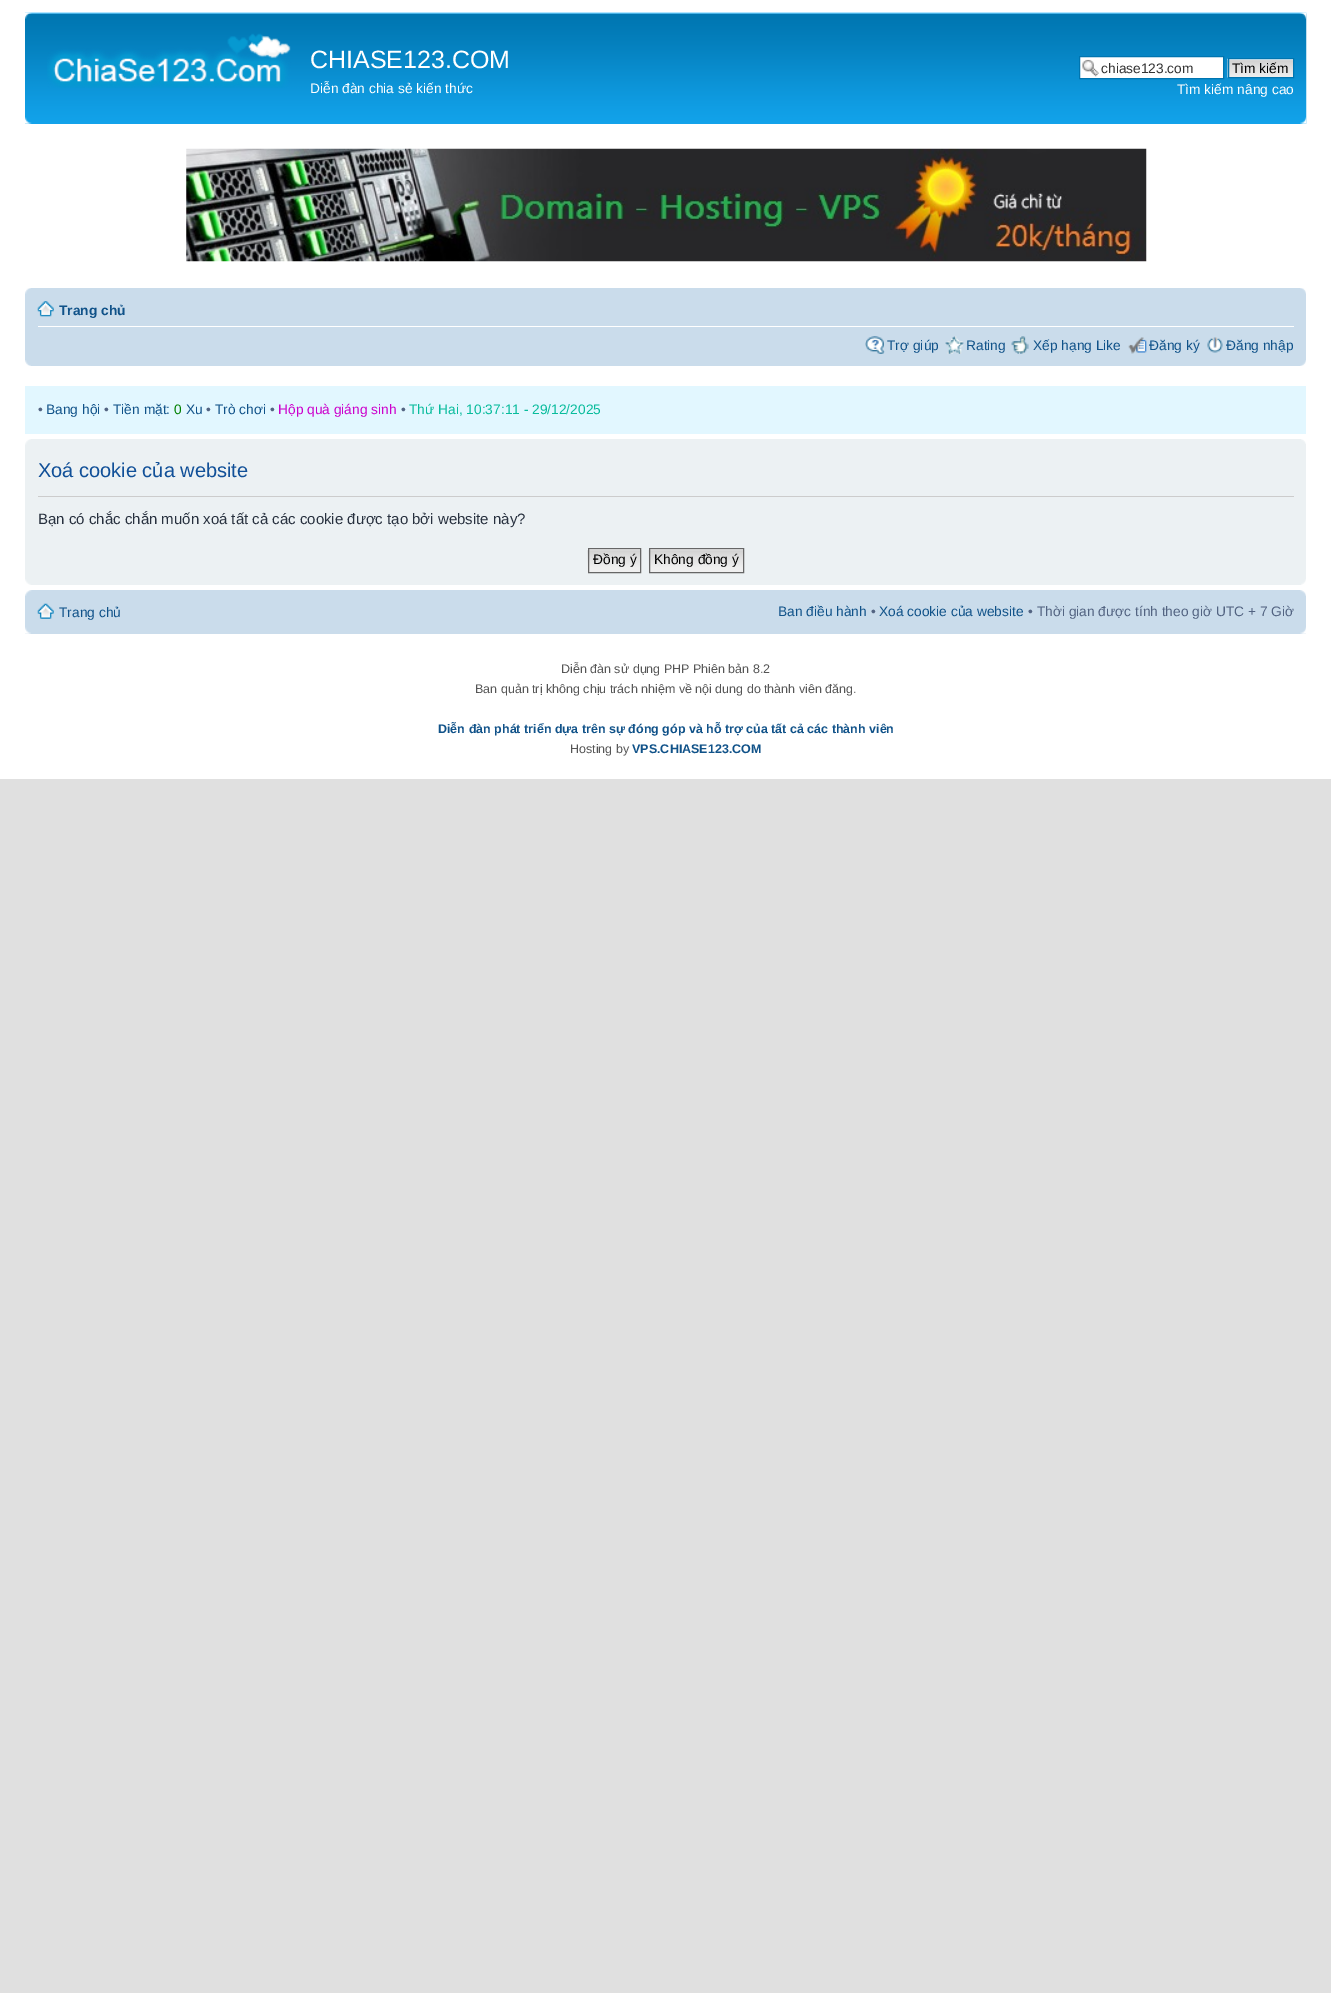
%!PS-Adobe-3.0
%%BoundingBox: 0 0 1331 1993
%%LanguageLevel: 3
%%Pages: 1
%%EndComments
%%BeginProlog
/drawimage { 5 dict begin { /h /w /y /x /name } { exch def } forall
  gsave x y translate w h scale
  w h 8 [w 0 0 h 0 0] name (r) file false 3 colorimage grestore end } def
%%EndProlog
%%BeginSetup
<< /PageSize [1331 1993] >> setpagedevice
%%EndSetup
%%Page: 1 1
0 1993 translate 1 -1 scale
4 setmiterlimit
0.878 setgray
0 0 1331 1993 rectfill
1 setgray
0 0 1331 779 rectfill
(images/1.raw) 25 12 1282 112 drawimage
(images/2.raw) 25 12 7 7 drawimage
(images/3.raw) 1299 12 8 7 drawimage
(images/4.raw) 47 33 244 55 drawimage
1080 57 143 21 rectfill
(images/5.raw) 1082 59 17 18 drawimage
0 0.459 0.69 setrgbcolor
1079.5 56.5 144 22 rectstroke
(images/6.raw) 1227 58 66 20 drawimage
1228.5 58.5 65 19 rectstroke
(images/7.raw) 25 117 7 7 drawimage
(images/8.raw) 1300 117 7 7 drawimage
(images/9.raw) 186 148 961 114 drawimage
0.792 0.863 0.922 setrgbcolor
25 288 1281 78 rectfill
(images/10.raw) 25 288 6 6 drawimage
(images/11.raw) 1300 288 6 6 drawimage
1 setgray
38 326 1256 1 rectfill
(images/12.raw) 37 301 17 16 drawimage
(images/13.raw) 865 336 20 18 drawimage
(images/14.raw) 945 336 19 18 drawimage
(images/15.raw) 1011 336 18 18 drawimage
(images/16.raw) 1128 337 19 17 drawimage
(images/17.raw) 1207 337 16 16 drawimage
(images/18.raw) 25 360 6 6 drawimage
(images/19.raw) 1300 360 6 6 drawimage
0.886 0.969 1 setrgbcolor
25 386 1281 48 rectfill
0.925 0.945 0.953 setrgbcolor
25 439 1281 146 rectfill
(images/20.raw) 25 439 6 6 drawimage
(images/21.raw) 1301 439 5 5 drawimage
0.8 setgray
38 496 1256 1 rectfill
(images/22.raw) 587 549 55 24 drawimage
0.4 setgray
588.5 548.5 52 24 rectstroke
0.98 setgray
650 549 93 1 rectfill
(images/23.raw) 648 550 95 23 drawimage
0.4 setgray
649.5 548.5 94 24 rectstroke
(images/24.raw) 25 579 6 6 drawimage
(images/25.raw) 1301 579 5 6 drawimage
0.792 0.863 0.922 setrgbcolor
25 590 1281 44 rectfill
(images/26.raw) 25 590 7 6 drawimage
(images/27.raw) 1300 590 6 6 drawimage
(images/28.raw) 37 603 17 16 drawimage
(images/29.raw) 25 627 6 7 drawimage
(images/30.raw) 1300 627 6 7 drawimage
/LiberationSans-Regular [25 0 0 -25 0 0] selectfont
1 setgray
310 68 moveto (CHIASE123.COM) show
/LiberationSans-Regular [13.75 0 0 -13.75 0 0] selectfont
310 93 moveto (Diễn đàn chia sẻ kiến thức) show
0.2 setgray
1101 73 moveto (chiase123.com) show
0 setgray
1232 73 moveto (Tìm kiếm) show
1 setgray
1177 94 moveto (Tìm kiếm nâng cao) show
/LiberationSans-Bold [13.75 0 0 -13.75 0 0] selectfont
0.063 0.322 0.537 setrgbcolor
59 315 moveto (Trang chủ) show
/LiberationSans-Regular [13.75 0 0 -13.75 0 0] selectfont
887 350 moveto (Trợ giúp) show
966 350 moveto (Rating) show
1033 350 moveto (Xếp hạng Like) show
1149 350 moveto (Đăng ký) show
1226 350 moveto (Đăng nhập) show
0.325 0.392 0.51 setrgbcolor
38 414 moveto (•) show
0.063 0.322 0.537 setrgbcolor
46 414 moveto (Bang hội) show
0.325 0.392 0.51 setrgbcolor
104 414 moveto (•) show
0.063 0.322 0.537 setrgbcolor
113 414 moveto (Tiền mặt:) show
0 0.502 0 setrgbcolor
174 414 moveto (0) show
0.063 0.322 0.537 setrgbcolor
186 414 moveto (Xu) show
0.325 0.392 0.51 setrgbcolor
206 414 moveto (•) show
0.063 0.322 0.537 setrgbcolor
215 414 moveto (Trò chơi) show
0.325 0.392 0.51 setrgbcolor
270 414 moveto (•) show
0.8 0 0.8 setrgbcolor
278 414 moveto (Hộp quà giáng sinh) show
0.325 0.392 0.51 setrgbcolor
401 414 moveto (•) show
0.031 0.737 0.612 setrgbcolor
409 414 moveto (Thứ Hai, 10:37:11 - 29/12/2025) show
/LiberationSans-Regular [20 0 0 -20 0 0] selectfont
0.067 0.314 0.596 setrgbcolor
38 477 moveto (Xoá cookie của website) show
/LiberationSans-Regular [15 0 0 -15 0 0] selectfont
0.157 0.192 0.247 setrgbcolor
38 524 moveto (Bạn có chắc chắn muốn xoá tất cả các cookie được tạo bởi website này?) show
/LiberationSans-Regular [13.75 0 0 -13.75 0 0] selectfont
0 setgray
593 564 moveto (Đồng ý) show
654 564 moveto (Không đồng ý) show
0.063 0.322 0.537 setrgbcolor
59 617 moveto (Trang chủ) show
778 616 moveto (Ban điều hành) show
0.325 0.392 0.51 setrgbcolor
871 616 moveto (•) show
0.063 0.322 0.537 setrgbcolor
879 616 moveto (Xoá cookie của website) show
0.325 0.392 0.51 setrgbcolor
1028 616 moveto (• Thời gian được tính theo giờ UTC + 7 Giờ) show
/LiberationSans-Regular [12.5 0 0 -12.5 0 0] selectfont
0.333 setgray
561 673 moveto (Diễn đàn sử dụng PHP Phiên bản 8.2) show
475 693 moveto (Ban quản trị không chịu trách nhiệm về nội dung do thành viên đăng.) show
/LiberationSans-Bold [12.5 0 0 -12.5 0 0] selectfont
0.063 0.322 0.537 setrgbcolor
438 733 moveto (Diễn đàn phát triển dựa trên sự đóng góp và hỗ trợ của tất cả các thành viên) show
/LiberationSans-Regular [12.5 0 0 -12.5 0 0] selectfont
0.333 setgray
570 753 moveto (Hosting by) show
/LiberationSans-Bold [12.5 0 0 -12.5 0 0] selectfont
0.063 0.322 0.537 setrgbcolor
632 753 moveto (VPS.CHIASE123.COM) show
showpage
%%EOF
